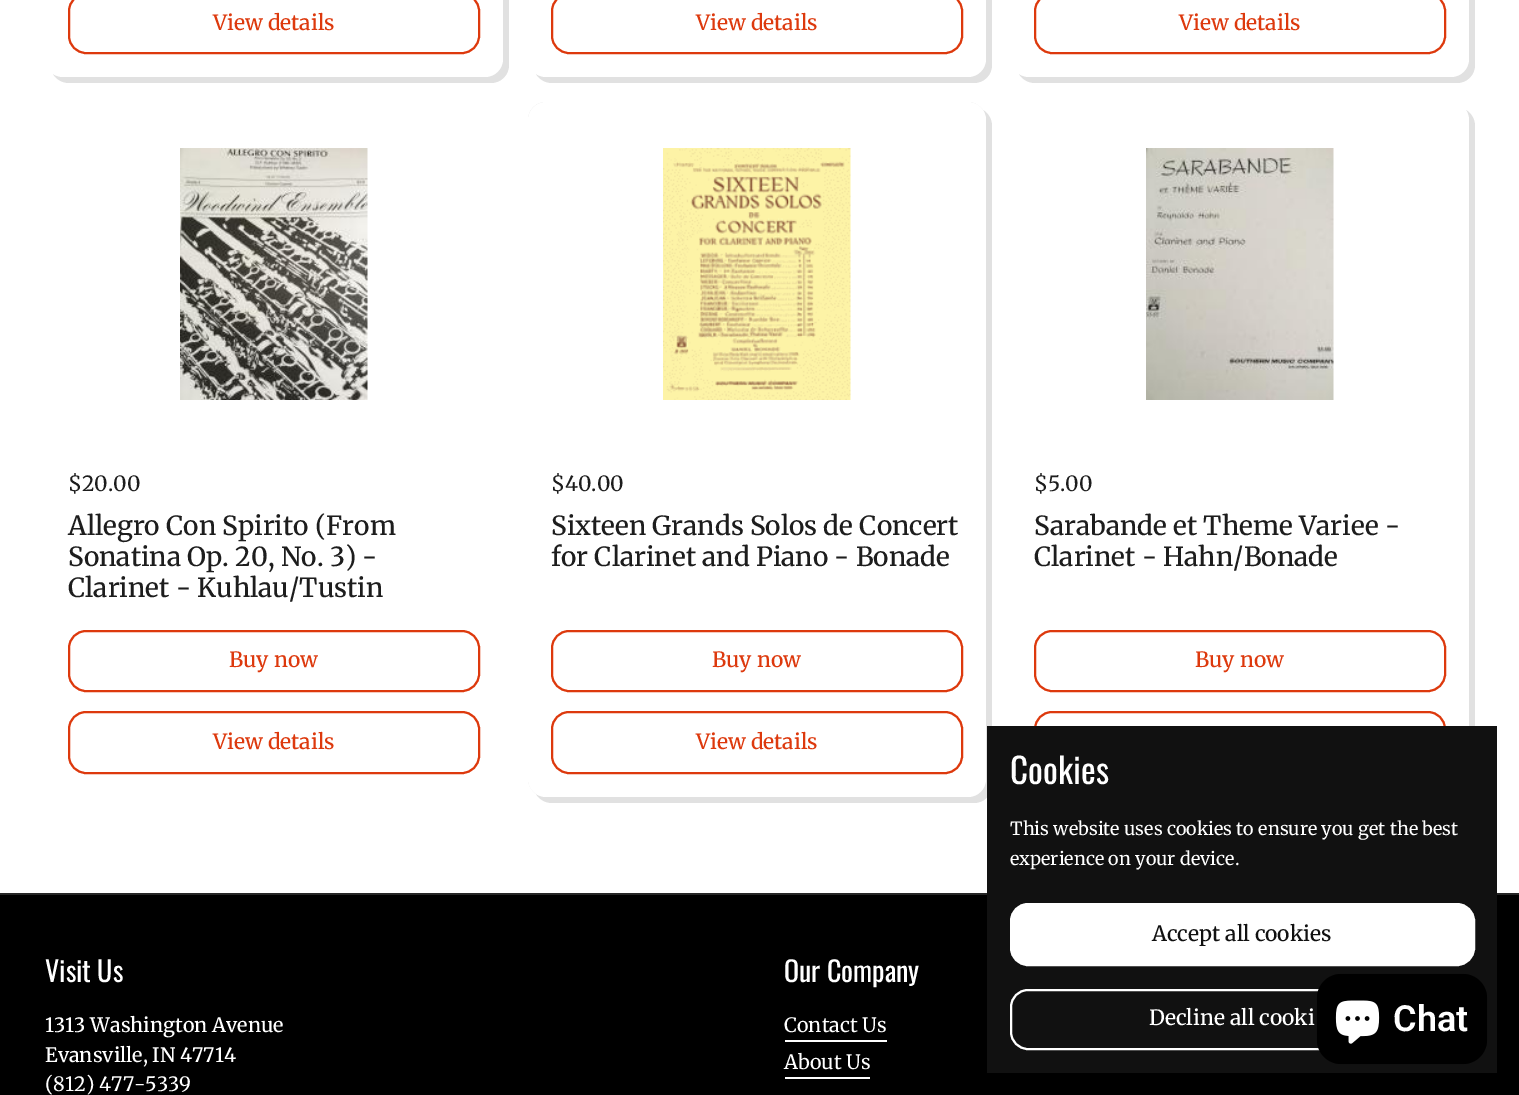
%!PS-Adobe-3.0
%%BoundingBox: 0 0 1519 1095
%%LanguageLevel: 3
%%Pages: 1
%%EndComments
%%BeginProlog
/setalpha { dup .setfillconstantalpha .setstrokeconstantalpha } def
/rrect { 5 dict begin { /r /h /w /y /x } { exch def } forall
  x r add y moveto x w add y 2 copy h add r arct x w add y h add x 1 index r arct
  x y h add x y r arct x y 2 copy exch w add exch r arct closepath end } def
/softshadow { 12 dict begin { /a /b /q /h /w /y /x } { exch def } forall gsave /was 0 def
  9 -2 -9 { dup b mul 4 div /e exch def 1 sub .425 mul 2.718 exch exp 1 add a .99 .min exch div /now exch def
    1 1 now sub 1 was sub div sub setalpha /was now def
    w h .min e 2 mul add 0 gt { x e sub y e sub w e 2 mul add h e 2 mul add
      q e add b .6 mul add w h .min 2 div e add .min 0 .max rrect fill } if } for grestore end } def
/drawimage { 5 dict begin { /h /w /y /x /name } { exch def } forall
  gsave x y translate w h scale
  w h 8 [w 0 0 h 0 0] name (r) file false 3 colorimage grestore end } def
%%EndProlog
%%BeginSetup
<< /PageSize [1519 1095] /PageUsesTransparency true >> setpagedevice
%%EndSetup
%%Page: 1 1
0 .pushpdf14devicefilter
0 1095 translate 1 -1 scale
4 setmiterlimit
1 setgray
0 0 1519 1095 rectfill
0.882 setgray
newpath 53 74 moveto 56 79 62 83 69 83 curveto 491 83 lineto 501 83 509 75 509 65 curveto 509 -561 lineto 509 -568 505 -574 500 -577 curveto 501 -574 502 -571 502 -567 curveto 502 58 lineto 502 68 494 76 484 76 curveto 63 76 lineto 59 76 56 75 53 74 curveto closepath fill
1 setgray
45 -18 458 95 18 rrect fill
0.867 0.224 0.051 setrgbcolor
2 setlinewidth
69 -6 410 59 17 rrect stroke
0.882 setgray
newpath 536 74 moveto 539 79 545 83 552 83 curveto 974 83 lineto 984 83 992 75 992 65 curveto 992 -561 lineto 992 -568 988 -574 983 -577 curveto 984 -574 986 -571 986 -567 curveto 986 58 lineto 986 68 977 76 968 76 curveto 546 76 lineto 542 76 539 75 536 74 curveto closepath fill
1 setgray
528 -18 458 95 18 rrect fill
0.867 0.224 0.051 setrgbcolor
552 -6 410 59 17 rrect stroke
0.882 setgray
newpath 1019 74 moveto 1022 79 1028 83 1035 83 curveto 1457 83 lineto 1467 83 1475 75 1475 65 curveto 1475 -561 lineto 1475 -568 1471 -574 1466 -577 curveto 1467 -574 1468 -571 1468 -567 curveto 1468 58 lineto 1468 68 1460 76 1450 76 curveto 1029 76 lineto 1025 76 1022 75 1019 74 curveto closepath fill
1 setgray
1011 -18 458 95 18 rrect fill
0.867 0.224 0.051 setrgbcolor
1035 -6 410 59 17 rrect stroke
(images/1.raw) 180 148 188 252 drawimage
69 631 410 60 17 rrect stroke
69 712 410 61 17 rrect stroke
0.882 setgray
newpath 552 108 moveto 542 108 534 116 534 126 curveto 534 785 lineto 534 788 535 791 536 794 curveto 539 799 545 803 552 803 curveto 974 803 lineto 984 803 992 795 992 785 curveto 992 126 lineto 992 119 988 113 983 110 curveto 980 109 977 108 974 108 curveto closepath 546 102 moveto 536 102 528 110 528 120 curveto 528 778 lineto 528 785 531 790 536 794 curveto 539 795 542 796 546 796 curveto 968 796 lineto 977 796 986 788 986 778 curveto 986 120 lineto 986 116 984 113 983 110 curveto 979 105 974 102 968 102 curveto closepath eofill
1 setgray
528 102 458 695 18 rrect fill
(images/2.raw) 663 148 188 252 drawimage
0.867 0.224 0.051 setrgbcolor
552 631 410 60 17 rrect stroke
552 712 410 61 17 rrect stroke
0.882 setgray
newpath 1019 794 moveto 1022 799 1028 803 1035 803 curveto 1457 803 lineto 1467 803 1475 795 1475 785 curveto 1475 126 lineto 1475 119 1471 113 1466 110 curveto 1467 113 1468 116 1468 120 curveto 1468 778 lineto 1468 788 1460 796 1450 796 curveto 1029 796 lineto 1025 796 1022 795 1019 794 curveto closepath fill
1 setgray
1011 102 458 695 18 rrect fill
(images/3.raw) 1146 148 188 252 drawimage
0.867 0.224 0.051 setrgbcolor
1035 631 410 60 17 rrect stroke
1035 712 410 61 17 rrect stroke
0 setgray
0 895 1519 200 rectfill
0.149 setgray
0 893 1519 2 rectfill
1 setgray
785 1040 102 2 rectfill
785 1077 85 2 rectfill
0.067 setgray
987 726 510 347 rectfill
1 setgray
1011 904 463 61 17 rrect gsave fill grestore
stroke
1011 990 463 59 17 rrect stroke
0 setgray
1317 974 170 90 24 4 0.15 softshadow
1317 974 170 90 24 rrect fill
(images/4.raw) 1335 1000 45 44 drawimage
/Merriweather-Medium [21 0 0 -21 0 0] selectfont
0.867 0.224 0.051 setrgbcolor
213 30 moveto (View details) show
696 30 moveto (View details) show
1179 30 moveto (View details) show
/Merriweather-Regular [21 0 0 -21 0 0] selectfont
0.114 setgray
68 491 moveto ($20.00) show
/Merriweather-Medium [26.25 0 0 -26.25 0 0] selectfont
68 535 moveto (Allegro Con Spirito \(From) show
68 566 moveto (Sonatina Op. 20, No. 3\) -) show
68 597 moveto (Clarinet - Kuhlau/Tustin) show
/Merriweather-Medium [21 0 0 -21 0 0] selectfont
0.867 0.224 0.051 setrgbcolor
229 667 moveto (Buy now) show
213 749 moveto (View details) show
/Merriweather-Regular [21 0 0 -21 0 0] selectfont
0.114 setgray
551 491 moveto ($40.00) show
/Merriweather-Medium [26.25 0 0 -26.25 0 0] selectfont
551 535 moveto (Sixteen Grands Solos de Concert) show
551 566 moveto (for Clarinet and Piano - Bonade) show
/Merriweather-Medium [21 0 0 -21 0 0] selectfont
0.867 0.224 0.051 setrgbcolor
712 667 moveto (Buy now) show
696 749 moveto (View details) show
/Merriweather-Regular [21 0 0 -21 0 0] selectfont
0.114 setgray
1034 491 moveto ($5.00) show
/Merriweather-Medium [26.25 0 0 -26.25 0 0] selectfont
1034 535 moveto (Sarabande et Theme Variee -) show
1034 566 moveto (Clarinet - Hahn/Bonade) show
/Merriweather-Medium [21 0 0 -21 0 0] selectfont
0.867 0.224 0.051 setrgbcolor
1195 667 moveto (Buy now) show
/Oswald-Regular [28 0 0 -28 0 0] selectfont
1 setgray
45 982 moveto (Visit Us) show
/Merriweather-Medium [19.75 0 0 -19.75 0 0] selectfont
45 1032 moveto (1313 Washington Avenue) show
45 1062 moveto (Evansville, IN 47714) show
/Merriweather-Regular [19.75 0 0 -19.75 0 0] selectfont
45 1091 moveto (\(812\) 477-5339) show
/Oswald-Regular [28 0 0 -28 0 0] selectfont
784 982 moveto (Our Company) show
/Merriweather-Regular [19.75 0 0 -19.75 0 0] selectfont
784 1032 moveto (Contact Us) show
784 1069 moveto (About Us) show
/Oswald-Regular [35 0 0 -35 0 0] selectfont
1010 784 moveto (Cookies) show
/Merriweather-Regular [18 0 0 -18 0 0] selectfont
1010 835 moveto (This website uses cookies to ensure you get the best) show
1010 865 moveto (experience on your device.) show
/Merriweather-Medium [21 0 0 -21 0 0] selectfont
0.067 setgray
1152 941 moveto (Accept all cookies) show
1 setgray
1149 1025 moveto (Decline all cooki) show
/Roboto-SemiBold [36 0 0 -36 0 0] selectfont
1393 1031 moveto (Chat) show
.poppdf14devicefilter showpage
%%EOF
